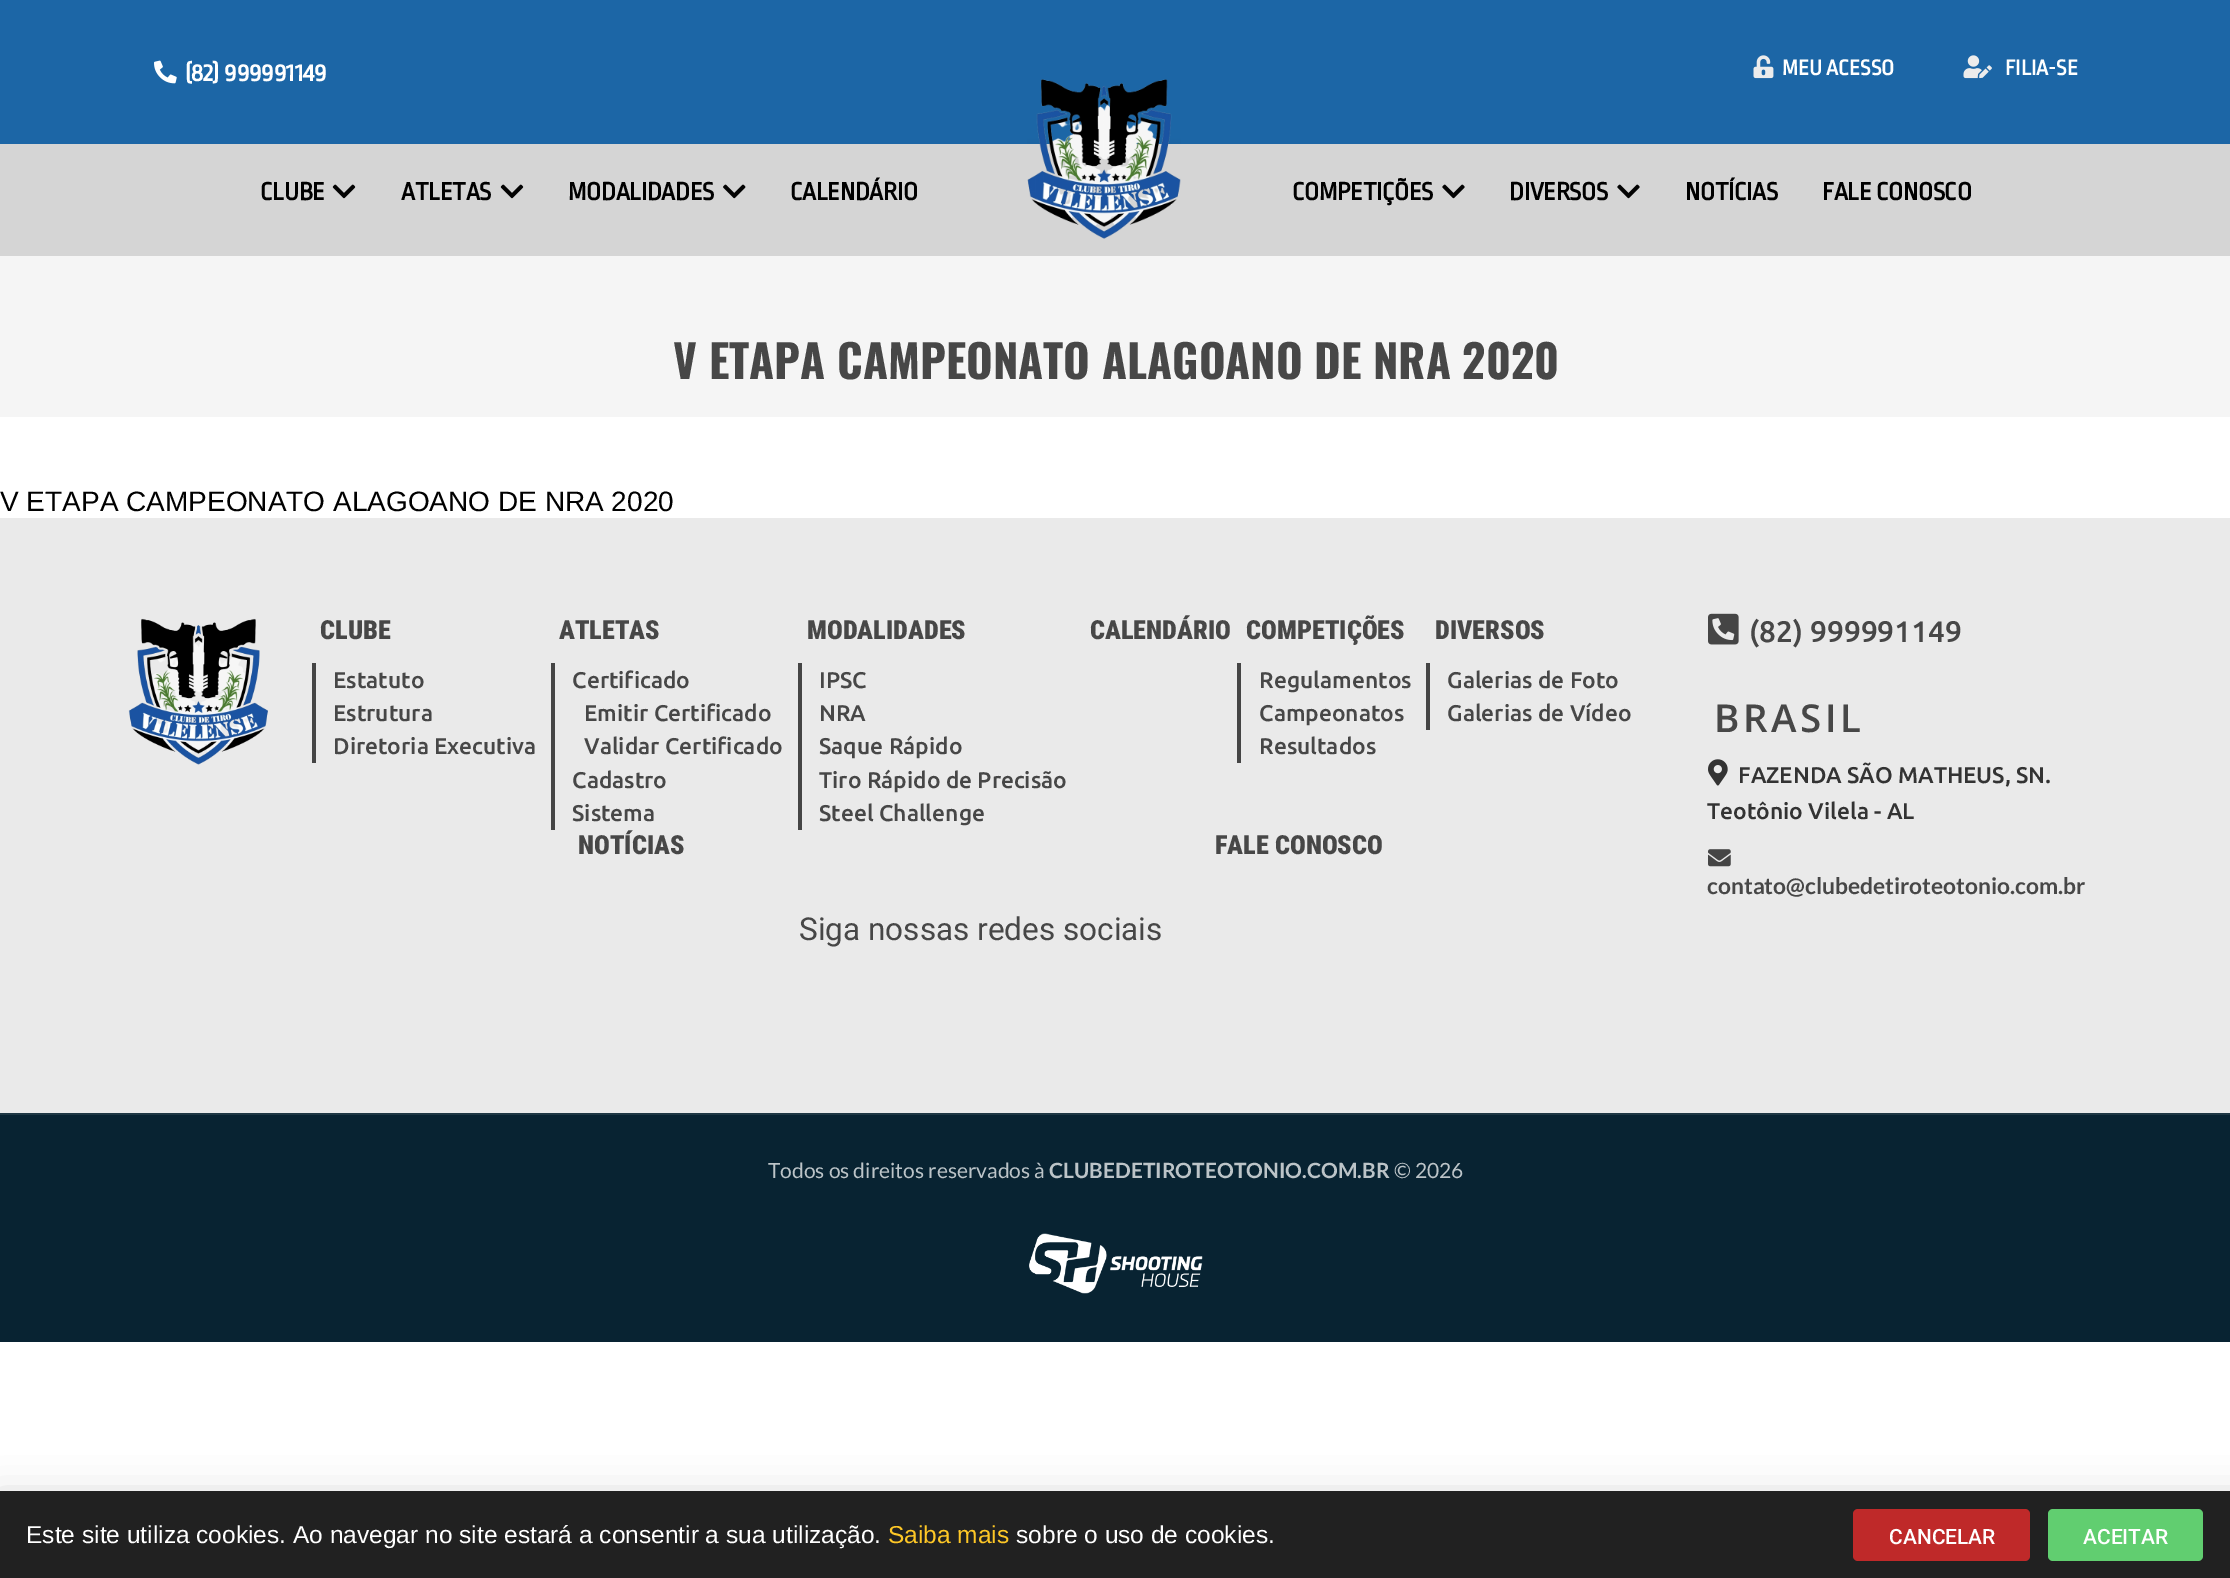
%!PS-Adobe-3.0
%%BoundingBox: 0 0 2230 1578
%%LanguageLevel: 3
%%Pages: 1
%%EndComments
%%BeginProlog
/setalpha { dup .setfillconstantalpha .setstrokeconstantalpha } def
/rrect { 5 dict begin { /r /h /w /y /x } { exch def } forall
  x r add y moveto x w add y 2 copy h add r arct x w add y h add x 1 index r arct
  x y h add x y r arct x y 2 copy exch w add exch r arct closepath end } def
/softshadow { 12 dict begin { /a /b /q /h /w /y /x } { exch def } forall gsave /was 0 def
  9 -2 -9 { dup b mul 4 div /e exch def 1 sub .425 mul 2.718 exch exp 1 add a .99 .min exch div /now exch def
    1 1 now sub 1 was sub div sub setalpha /was now def
    w h .min e 2 mul add 0 gt { x e sub y e sub w e 2 mul add h e 2 mul add
      q e add b .6 mul add w h .min 2 div e add .min 0 .max rrect fill } if } for grestore end } def
/drawimage { 5 dict begin { /h /w /y /x /name } { exch def } forall
  gsave x y translate w h scale
  w h 8 [w 0 0 h 0 0] name (r) file false 3 colorimage grestore end } def
%%EndProlog
%%BeginSetup
<< /PageSize [2230 1578] /PageUsesTransparency true >> setpagedevice
%%EndSetup
%%Page: 1 1
0 .pushpdf14devicefilter
0 1578 translate 1 -1 scale
4 setmiterlimit
1 setgray
0 0 2230 1578 rectfill
0.11 0.4 0.651 setrgbcolor
0 0 2230 144 rectfill
(images/1.raw) 154 60 23 24 drawimage
(images/2.raw) 1753 55 21 24 drawimage
(images/3.raw) 1963 55 29 24 drawimage
0.835 setgray
0 144 2230 112 rectfill
(images/4.raw) 332 184 24 15 drawimage
(images/4.raw) 500 184 24 15 drawimage
(images/5.raw) 723 184 23 15 drawimage
(images/6.raw) 1027 79 154 160 drawimage
(images/7.raw) 1442 184 23 15 drawimage
(images/7.raw) 1617 184 23 15 drawimage
0.961 setgray
0 256 2230 161 rectfill
0.918 setgray
0 518 2230 595 rectfill
(images/8.raw) 128 618 140 147 drawimage
0.271 setgray
312 663 4 100 rectfill
551 663 4 167 rectfill
798 663 4 167 rectfill
1237 663 4 100 rectfill
1426 663 4 67 rectfill
(images/9.raw) 1708 613 31 32 drawimage
(images/10.raw) 1708 759 20 27 drawimage
(images/11.raw) 1708 849 23 18 drawimage
0.031 0.137 0.196 setrgbcolor
0 1115 2230 227 rectfill
0.118 0.216 0.267 setrgbcolor
0 1113 2230 2 rectfill
(images/12.raw) 1029 1233 174 61 drawimage
0 setgray
-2 1500 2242 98 0 20 0.2 softshadow
0.129 setgray
0 1491 2230 87 rectfill
0.749 0.161 0.161 setrgbcolor
1853 1509 177 52 5 rrect fill
0.38 0.808 0.439 setrgbcolor
2048 1509 155 52 5 rrect fill
/RopaSans-Bold [26.25 0 0 -26.25 0 0] selectfont
1 setgray
185 81 moveto (\(82\) 999991149) show
/RopaSans-Bold [22.75 0 0 -22.75 0 0] selectfont
1782 75 moveto (MEU ACESSO) show
2005 75 moveto (FILIA-SE) show
/RopaSans-Bold [26.25 0 0 -26.25 0 0] selectfont
0 setgray
260 200 moveto -0.3 0 (CLUBE) ashow
401 200 moveto -0.3 0 (ATLETAS) ashow
568 200 moveto -0.3 0 (MODALIDADES) ashow
790 200 moveto -0.3 0 (CALENDÁRIO) ashow
1292 200 moveto -0.3 0 (COMPETIÇÕES) ashow
1509 200 moveto -0.3 0 (DIVERSOS) ashow
1685 200 moveto -0.3 0 (NOTÍCIAS) ashow
1822 200 moveto -0.3 0 (FALE CONOSCO) ashow
/Oswald-Bold [45.5 0 0 -45.5 0 0] selectfont
0.278 setgray
673 379 moveto (V ETAPA CAMPEONATO ALAGOANO DE NRA 2020) show
/LiberationSans-Regular [28 0 0 -28 0 0] selectfont
0 setgray
0 511 moveto (V ETAPA CAMPEONATO ALAGOANO DE NRA 2020) show
/RobotoCondensed-Black [26.25 0 0 -26.25 0 0] selectfont
0.278 setgray
320 639 moveto (CLUBE) show
/Ubuntu-Medium [22.75 0 0 -22.75 0 0] selectfont
333 688 moveto (Estatuto) show
333 721 moveto (Estrutura) show
333 754 moveto (Diretoria Executiva) show
/RobotoCondensed-Black [26.25 0 0 -26.25 0 0] selectfont
559 639 moveto (ATLETAS) show
/Ubuntu-Medium [22.75 0 0 -22.75 0 0] selectfont
572 688 moveto (Certificado) show
584 721 moveto (Emitir Certificado) show
584 754 moveto (Validar Certificado) show
572 788 moveto (Cadastro) show
572 821 moveto (Sistema) show
/RobotoCondensed-Black [26.25 0 0 -26.25 0 0] selectfont
807 639 moveto (MODALIDADES) show
/Ubuntu-Medium [22.75 0 0 -22.75 0 0] selectfont
819 688 moveto (IPSC) show
819 721 moveto (NRA) show
819 754 moveto (Saque Rápido) show
819 788 moveto (Tiro Rápido de Precisão) show
819 821 moveto (Steel Challenge) show
/RobotoCondensed-Black [26.25 0 0 -26.25 0 0] selectfont
1090 639 moveto (CALENDÁRIO) show
1246 639 moveto (COMPETIÇÕES) show
/Ubuntu-Medium [22.75 0 0 -22.75 0 0] selectfont
1259 688 moveto (Regulamentos) show
1259 721 moveto (Campeonatos) show
1259 754 moveto (Resultados) show
/RobotoCondensed-Black [26.25 0 0 -26.25 0 0] selectfont
1435 639 moveto (DIVERSOS) show
/Ubuntu-Medium [22.75 0 0 -22.75 0 0] selectfont
1447 688 moveto (Galerias de Foto) show
1447 721 moveto (Galerias de Vídeo) show
/RobotoCondensed-Black [26.25 0 0 -26.25 0 0] selectfont
578 854 moveto (NOTÍCIAS) show
1215 854 moveto (FALE CONOSCO) show
/Roboto-Regular [31.5 0 0 -31.5 0 0] selectfont
799 940 moveto (Siga nossas redes sociais) show
/Ubuntu-Medium [29.75 0 0 -29.75 0 0] selectfont
1749 642 moveto (\(82\) 999991149) show
/OpenSans-SemiBold [38.5 0 0 -38.5 0 0] selectfont
1714 732 moveto 3.5 0 (BRASIL) ashow
/Ubuntu-Medium [22.75 0 0 -22.75 0 0] selectfont
0.2 setgray
1738 783 moveto (FAZENDA SÃO MATHEUS, SN.) show
1707 819 moveto (Teotônio Vilela - AL) show
/Lato-Bold [22.75 0 0 -22.75 0 0] selectfont
0.278 setgray
1707 894 moveto (contato@clubedetiroteotonio.com.br) show
/Lato-Regular [21 0 0 -21 0 0] selectfont
0.737 0.769 0.784 setrgbcolor
768 1178 moveto (Todos os direitos reservados à) show
/Lato-Bold [21 0 0 -21 0 0] selectfont
1049 1178 moveto (CLUBEDETIROTEOTONIO.COM.BR) show
/Lato-Regular [21 0 0 -21 0 0] selectfont
1394 1178 moveto (© 2026) show
/LiberationSans-Regular [24.5 0 0 -24.5 0 0] selectfont
1 setgray
26 1543 moveto (Este site utiliza cookies. Ao navegar no site estará a consentir a sua utilização.) show
0.996 0.78 0.149 setrgbcolor
888 1543 moveto (Saiba mais) show
1 setgray
1016 1543 moveto (sobre o uso de cookies.) show
/Roboto-Medium [21 0 0 -21 0 0] selectfont
1889 1544 moveto (CANCELAR) show
2083 1544 moveto (ACEITAR) show
.poppdf14devicefilter showpage
%%EOF
